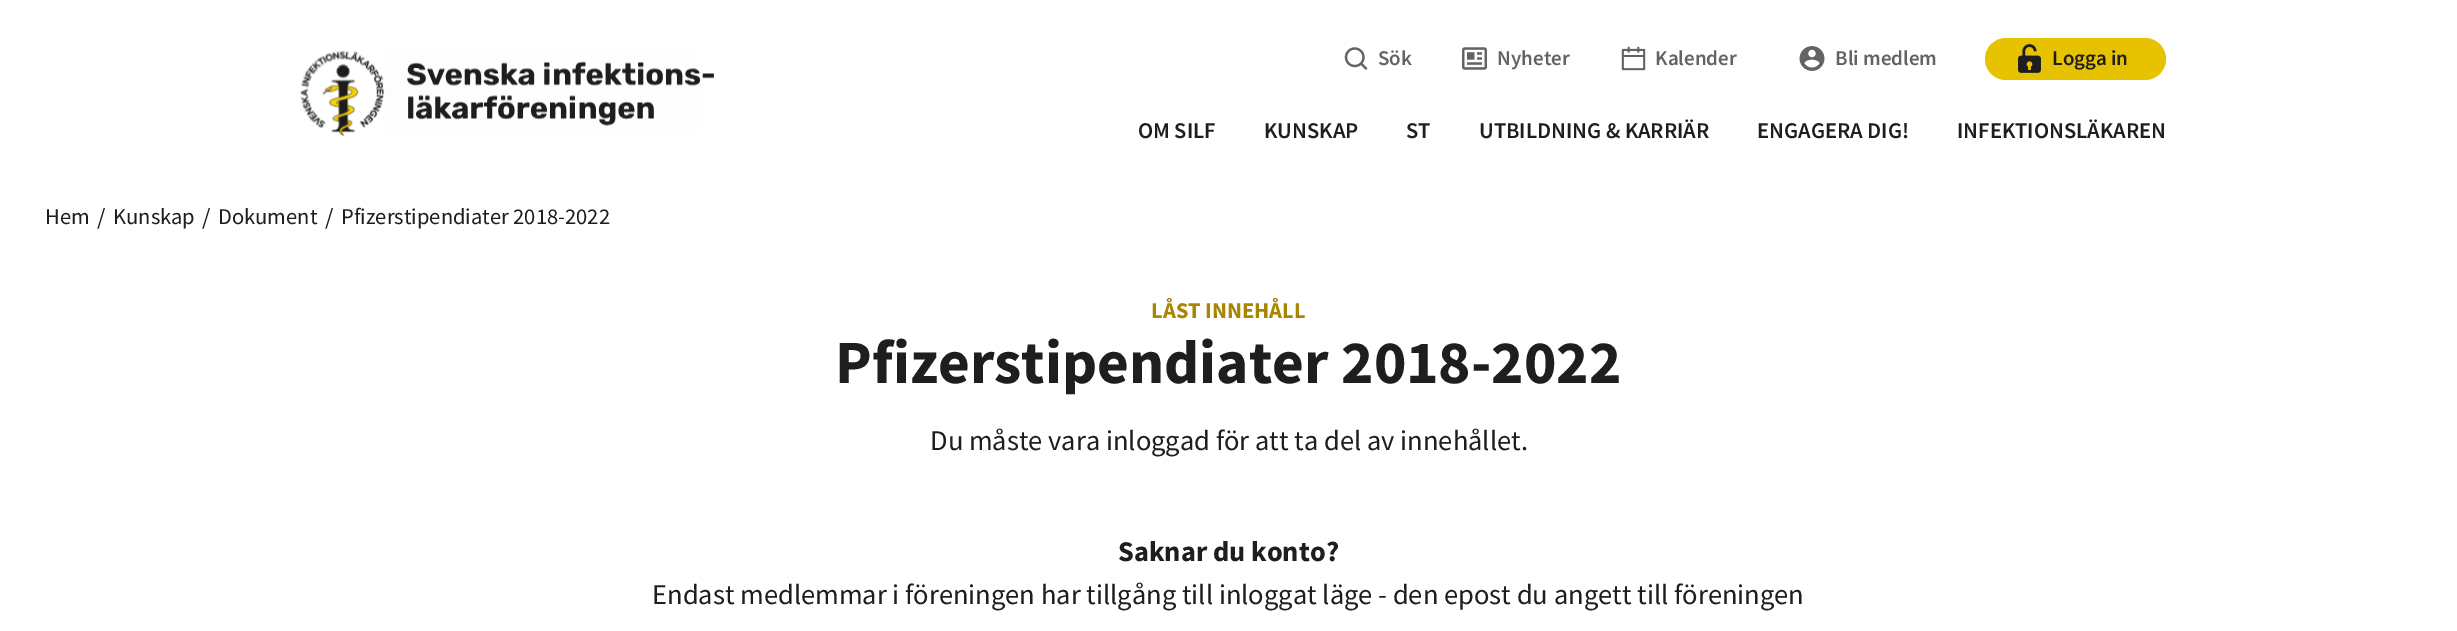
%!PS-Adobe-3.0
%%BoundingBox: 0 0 2457 631
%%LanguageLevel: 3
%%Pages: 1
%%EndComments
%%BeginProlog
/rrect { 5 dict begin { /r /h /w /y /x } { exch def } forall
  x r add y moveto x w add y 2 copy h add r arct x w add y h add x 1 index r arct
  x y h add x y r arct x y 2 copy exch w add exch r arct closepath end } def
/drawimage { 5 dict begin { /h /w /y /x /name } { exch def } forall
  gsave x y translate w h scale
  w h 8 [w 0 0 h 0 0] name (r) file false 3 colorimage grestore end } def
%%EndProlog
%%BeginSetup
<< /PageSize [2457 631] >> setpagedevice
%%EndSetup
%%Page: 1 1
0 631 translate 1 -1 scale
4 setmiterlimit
1 setgray
0 0 2457 631 rectfill
(images/1.raw) 300 50 414 87 drawimage
(images/2.raw) 1344 47 24 23 drawimage
(images/3.raw) 1462 47 25 23 drawimage
(images/4.raw) 1621 46 25 25 drawimage
(images/5.raw) 1799 46 26 25 drawimage
0.906 0.761 0 setrgbcolor
1985 38 181 42 21 rrect fill
(images/6.raw) 2018 44 23 29 drawimage
/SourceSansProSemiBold-SemiBold [21 0 0 -21 0 0] selectfont
0.388 setgray
1378 65 moveto (Sök) show
1497 65 moveto (Nyheter) show
1655 65 moveto (Kalender) show
1835 65 moveto (Bli medlem) show
0.118 setgray
2052 65 moveto (Logga in) show
/SourceSansProSemiBold-SemiBold [22.5 0 0 -22.5 0 0] selectfont
1138 138 moveto (OM SILF) show
1264 138 moveto (KUNSKAP) show
1406 138 moveto (ST) show
1479 138 moveto (UTBILDNING & KARRIÄR) show
1757 138 moveto (ENGAGERA DIG!) show
1957 138 moveto (INFEKTIONSLÄKAREN) show
/SourceSansPro-Regular [22.5 0 0 -22.5 0 0] selectfont
45 224 moveto (Hem) show
/SourceSansPro-Regular [24 0 0 -24 0 0] selectfont
97 225 moveto (/) show
/SourceSansPro-Regular [22.5 0 0 -22.5 0 0] selectfont
113 224 moveto (Kunskap) show
/SourceSansPro-Regular [24 0 0 -24 0 0] selectfont
202 225 moveto (/) show
/SourceSansPro-Regular [22.5 0 0 -22.5 0 0] selectfont
218 224 moveto (Dokument) show
/SourceSansPro-Regular [24 0 0 -24 0 0] selectfont
325 225 moveto (/) show
/SourceSansPro-Regular [22.5 0 0 -22.5 0 0] selectfont
341 224 moveto (Pfizerstipendiater 2018-2022) show
/SourceSansPro-Bold [22.5 0 0 -22.5 0 0] selectfont
0.667 0.522 0.008 setrgbcolor
1151 318 moveto (LÅST INNEHÅLL) show
/SourceSansPro-Bold [61.5 0 0 -61.5 0 0] selectfont
0.118 setgray
835 383 moveto (Pfizerstipendiater 2018-2022) show
/SourceSansPro-Regular [28.5 0 0 -28.5 0 0] selectfont
930 450 moveto (Du måste vara inloggad för att ta del av innehållet.) show
/SourceSansPro-Bold [28.5 0 0 -28.5 0 0] selectfont
1118 561 moveto (Saknar du konto?) show
/SourceSansPro-Regular [28.5 0 0 -28.5 0 0] selectfont
652 604 moveto (Endast medlemmar i föreningen har tillgång till inloggat läge - den epost du angett till föreningen) show
showpage
%%EOF
